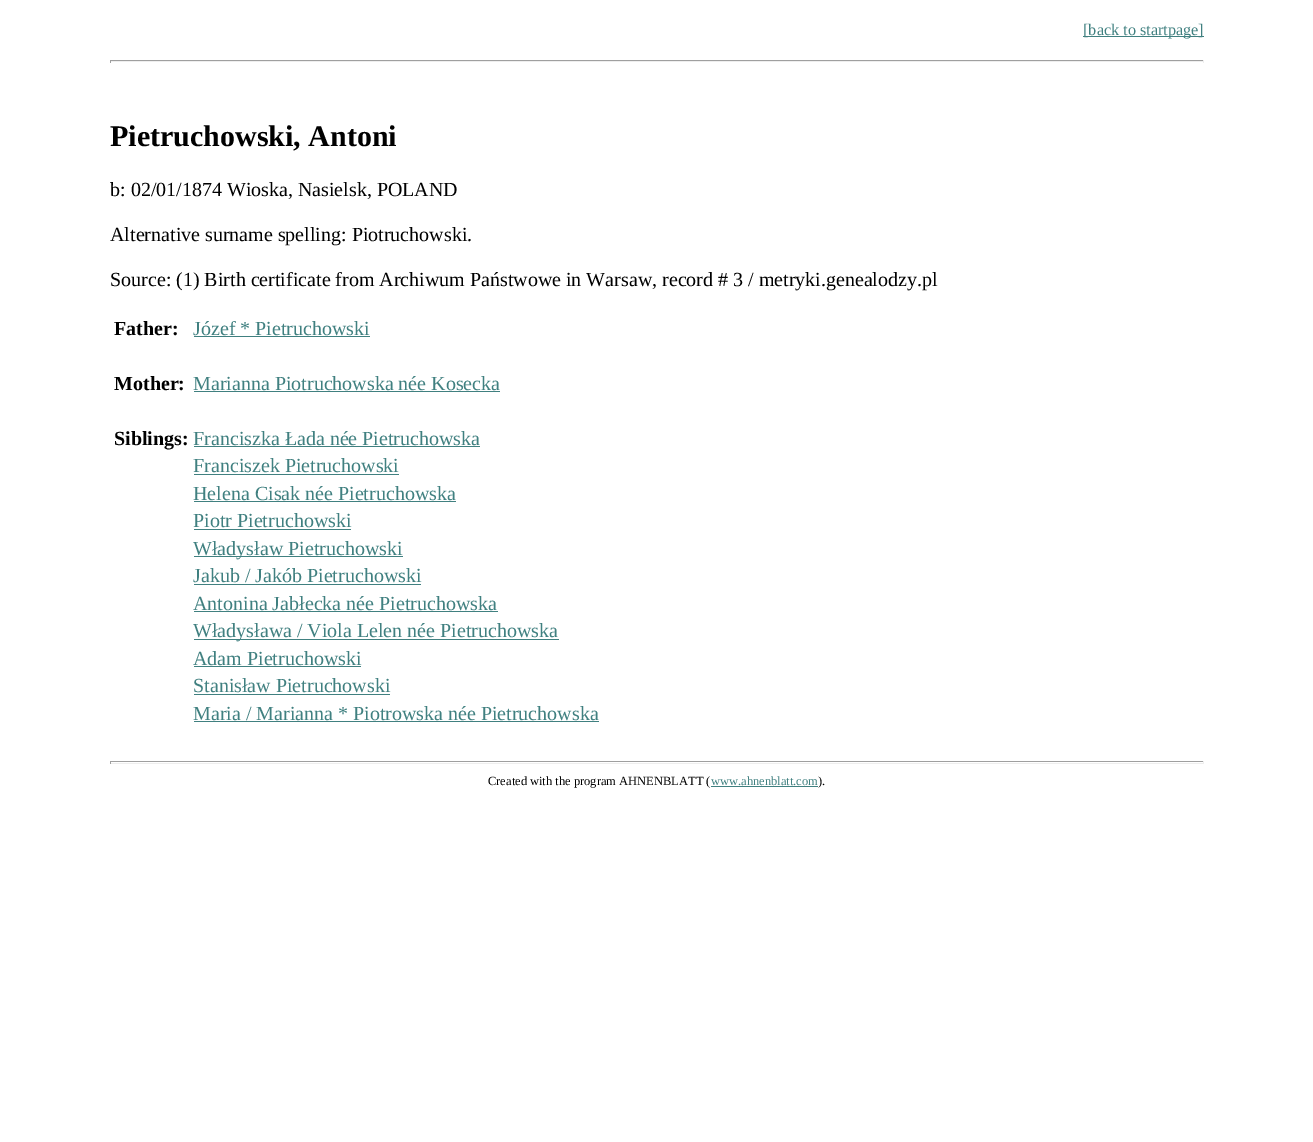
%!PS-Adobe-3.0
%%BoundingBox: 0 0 1313 1142
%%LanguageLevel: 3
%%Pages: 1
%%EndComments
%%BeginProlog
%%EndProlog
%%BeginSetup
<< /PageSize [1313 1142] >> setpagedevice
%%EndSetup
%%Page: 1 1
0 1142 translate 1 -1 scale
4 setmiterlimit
1 setgray
0 0 1313 1142 rectfill
0.251 0.502 0.502 setrgbcolor
1083 36 121 1 rectfill
0.624 setgray
110 60 1094 1 rectfill
0.933 setgray
1203 60 1 3 rectfill
110 61 1094 1 rectfill
0.624 setgray
110 60 1 3 rectfill
0.251 0.502 0.502 setrgbcolor
194 336 176 1 rectfill
194 391 306 1 rectfill
194 446 286 1 rectfill
194 474 205 1 rectfill
194 501 262 1 rectfill
194 529 157 1 rectfill
194 556 209 1 rectfill
194 584 227 1 rectfill
194 611 304 1 rectfill
194 639 365 1 rectfill
194 666 167 1 rectfill
194 694 196 1 rectfill
194 721 405 1 rectfill
0.624 setgray
110 761 1094 1 rectfill
0.933 setgray
1203 761 1 3 rectfill
110 763 1094 1 rectfill
0.624 setgray
110 761 1 3 rectfill
0.251 0.502 0.502 setrgbcolor
711 786 107 1 rectfill
/LiberationSerif-Regular [16.25 0 0 -16.25 0 0] selectfont
1083 35 moveto ([back to startpage]) show
/LiberationSerif-Bold [30 0 0 -30 0 0] selectfont
0 setgray
110 146 moveto (Pietruchowski, Antoni) show
/LiberationSerif-Regular [20 0 0 -20 0 0] selectfont
110 196 moveto (b: 02/01/1874 Wioska, Nasielsk, POLAND) show
110 241 moveto (Alternative surname spelling: Piotruchowski.) show
110 286 moveto (Source: \(1\) Birth certificate from Archiwum Państwowe in Warsaw, record # 3 / metryki.genealodzy.pl) show
/LiberationSerif-Bold [20 0 0 -20 0 0] selectfont
114 335 moveto (Father:) show
/LiberationSerif-Regular [20 0 0 -20 0 0] selectfont
0.251 0.502 0.502 setrgbcolor
193 335 moveto (Józef * Pietruchowski) show
/LiberationSerif-Bold [20 0 0 -20 0 0] selectfont
0 setgray
114 390 moveto (Mother:) show
/LiberationSerif-Regular [20 0 0 -20 0 0] selectfont
0.251 0.502 0.502 setrgbcolor
193 390 moveto (Marianna Piotruchowska née Kosecka) show
/LiberationSerif-Bold [20 0 0 -20 0 0] selectfont
0 setgray
114 445 moveto (Siblings:) show
/LiberationSerif-Regular [20 0 0 -20 0 0] selectfont
0.251 0.502 0.502 setrgbcolor
193 445 moveto (Franciszka Łada née Pietruchowska) show
193 472 moveto (Franciszek Pietruchowski) show
193 500 moveto (Helena Cisak née Pietruchowska) show
193 527 moveto (Piotr Pietruchowski) show
193 555 moveto (Władysław Pietruchowski) show
193 582 moveto (Jakub / Jakób Pietruchowski) show
193 610 moveto (Antonina Jabłecka née Pietruchowska) show
193 637 moveto (Władysława / Viola Lelen née Pietruchowska) show
193 665 moveto (Adam Pietruchowski) show
193 692 moveto (Stanisław Pietruchowski) show
193 720 moveto (Maria / Marianna * Piotrowska née Pietruchowska) show
/LiberationSerif-Regular [12.5 0 0 -12.5 0 0] selectfont
0 setgray
488 785 moveto (Created with the program AHNENBLATT \() show
0.251 0.502 0.502 setrgbcolor
711 785 moveto (www.ahnenblatt.com) show
0 setgray
818 785 moveto (\).) show
showpage
%%EOF
